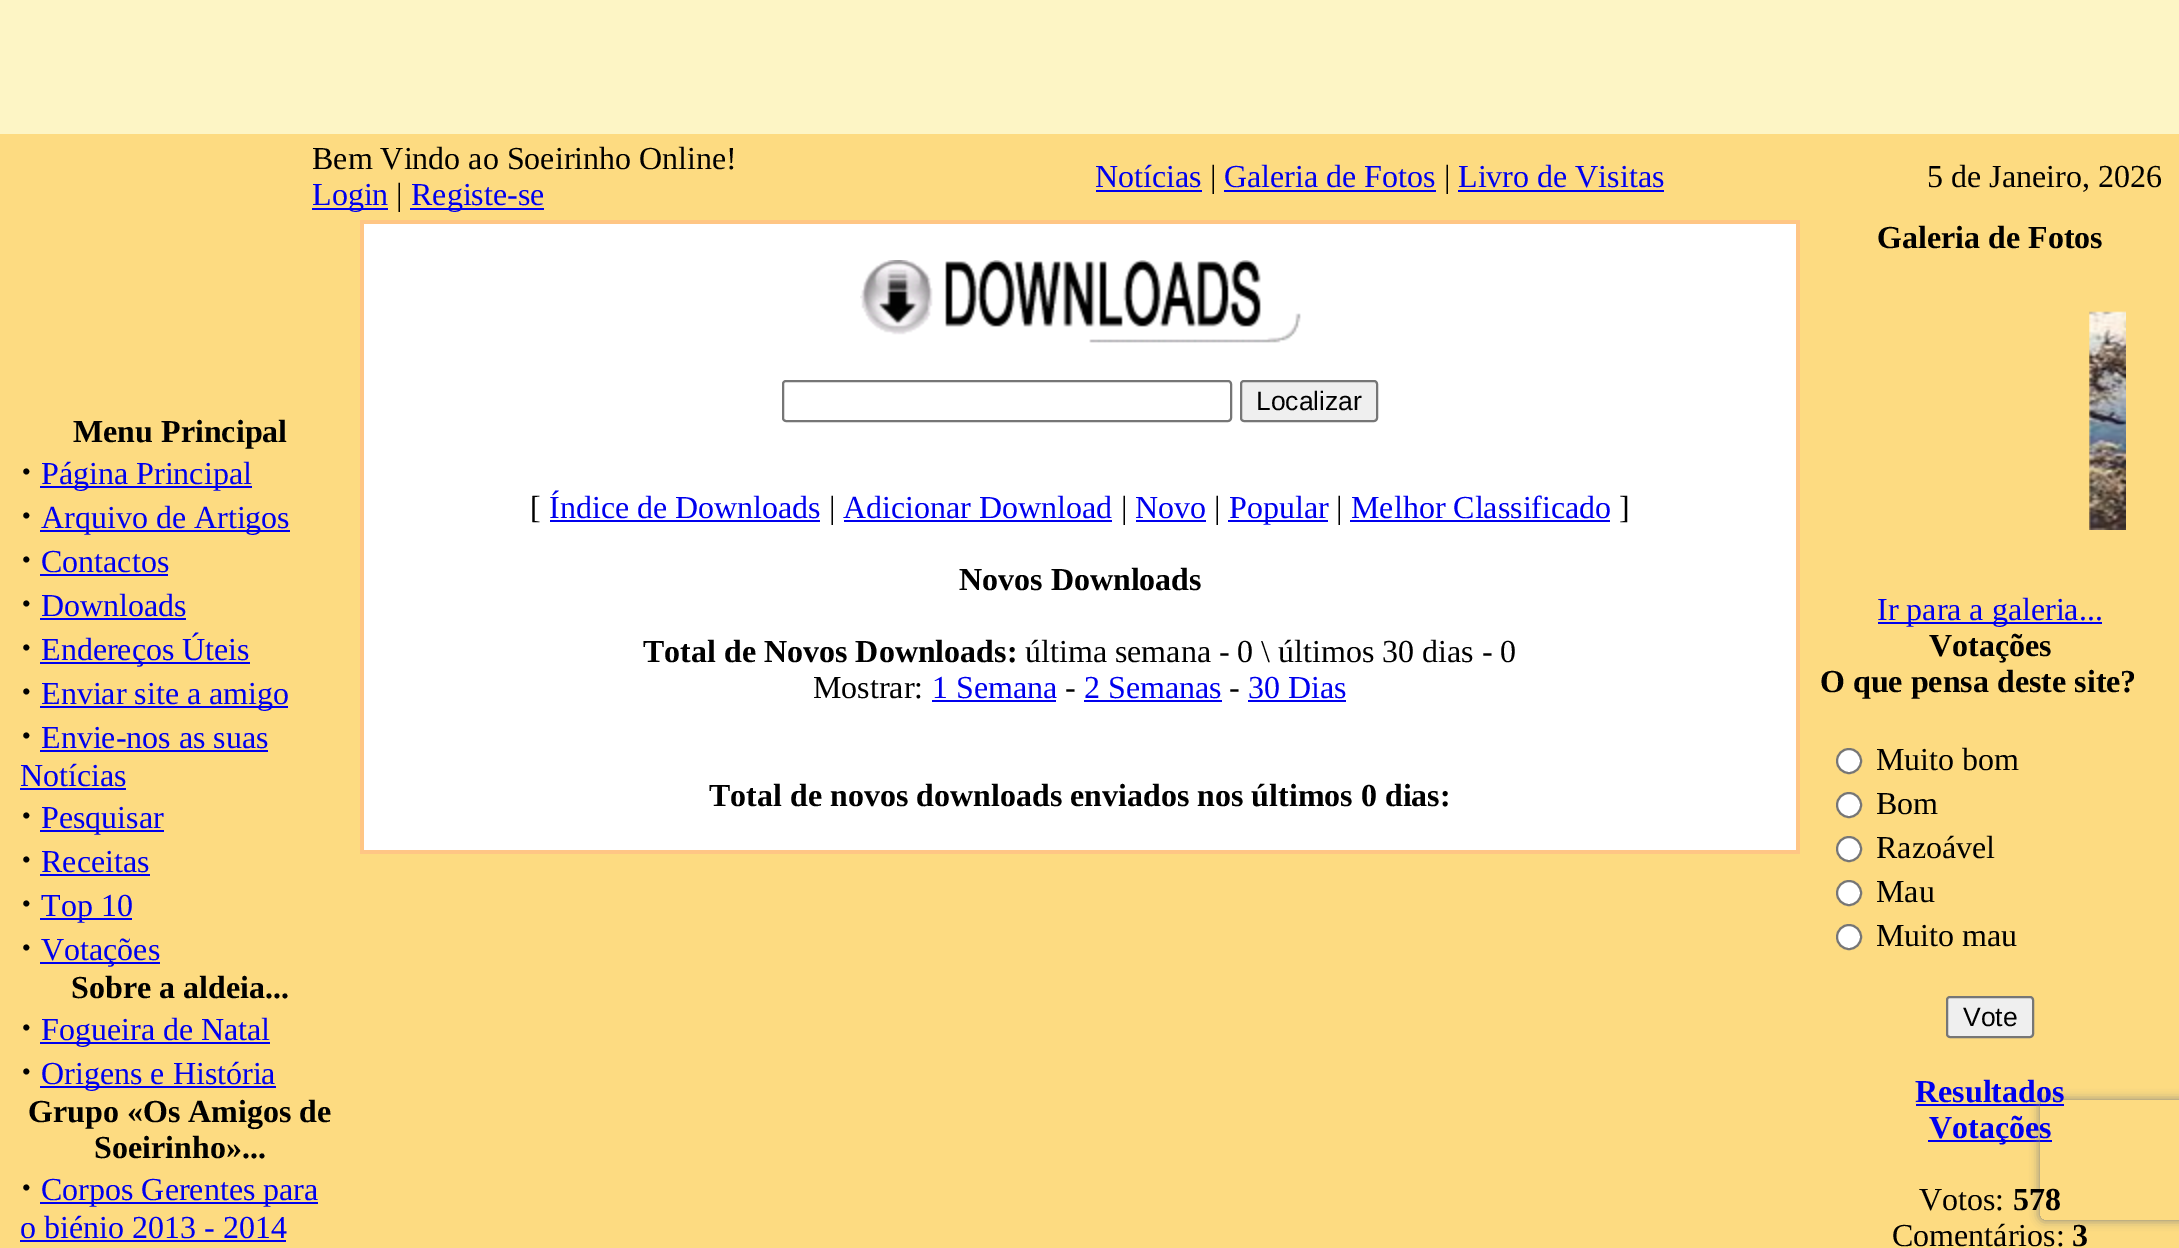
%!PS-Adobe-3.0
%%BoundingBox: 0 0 2179 1248
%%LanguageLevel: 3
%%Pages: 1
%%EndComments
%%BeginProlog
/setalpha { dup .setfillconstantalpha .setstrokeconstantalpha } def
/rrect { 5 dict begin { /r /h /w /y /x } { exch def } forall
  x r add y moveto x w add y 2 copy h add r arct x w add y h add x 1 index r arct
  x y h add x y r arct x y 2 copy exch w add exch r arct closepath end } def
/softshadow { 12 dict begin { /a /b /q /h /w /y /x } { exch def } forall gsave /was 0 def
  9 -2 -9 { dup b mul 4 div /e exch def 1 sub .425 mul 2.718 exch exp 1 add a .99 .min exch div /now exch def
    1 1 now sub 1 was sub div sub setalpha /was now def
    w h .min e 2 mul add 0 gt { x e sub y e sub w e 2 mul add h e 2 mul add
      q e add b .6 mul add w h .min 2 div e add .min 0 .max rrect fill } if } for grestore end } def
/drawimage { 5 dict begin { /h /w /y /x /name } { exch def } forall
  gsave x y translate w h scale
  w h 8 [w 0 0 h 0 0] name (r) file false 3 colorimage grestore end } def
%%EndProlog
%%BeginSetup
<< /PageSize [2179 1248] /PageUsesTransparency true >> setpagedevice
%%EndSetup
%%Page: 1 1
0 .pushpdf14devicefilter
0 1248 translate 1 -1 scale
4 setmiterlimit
0.992 0.859 0.506 setrgbcolor
0 0 2179 1248 rectfill
0.992 0.961 0.773 setrgbcolor
0 0 2179 134 rectfill
0 0 0.933 setrgbcolor
312 208 76 2 rectfill
410 208 134 2 rectfill
1096 190 106 2 rectfill
1224 190 212 2 rectfill
1458 190 206 2 rectfill
40 486 212 2 rectfill
40 530 250 2 rectfill
40 574 128 2 rectfill
40 618 146 2 rectfill
40 662 210 2 rectfill
40 706 248 2 rectfill
40 750 228 2 rectfill
20 788 106 2 rectfill
40 830 124 2 rectfill
40 874 110 2 rectfill
40 918 92 2 rectfill
40 962 120 2 rectfill
40 1042 230 2 rectfill
40 1086 236 2 rectfill
40 1202 278 2 rectfill
20 1240 266 2 rectfill
1 0.776 0.522 setrgbcolor
360 220 1440 4 rectfill
360 224 4 626 rectfill
1 setgray
364 224 1432 626 rectfill
(images/1.raw) 860 260 441 83 drawimage
0.463 setgray
2 setlinewidth
783 381 448 40 3 rrect stroke
0.937 setgray
1241 381 136 40 3 rrect gsave fill grestore
0.463 setgray
stroke
0 0 0.933 setrgbcolor
550 520 270 2 rectfill
844 520 268 2 rectfill
1136 520 70 2 rectfill
1228 520 100 2 rectfill
1350 520 260 2 rectfill
932 700 124 2 rectfill
1084 700 138 2 rectfill
1248 700 98 2 rectfill
1 0.776 0.522 setrgbcolor
1796 224 4 626 rectfill
360 850 1440 4 rectfill
(images/2.raw) 2089 311 37 219 drawimage
0 0 0.933 setrgbcolor
1878 622 224 2 rectfill
1 setgray
newpath 1849 761 12 0 360 arc closepath gsave fill grestore
0.463 setgray
stroke
1 setgray
newpath 1849 805 12 0 360 arc closepath gsave fill grestore
0.463 setgray
stroke
1 setgray
newpath 1849 849 12 0 360 arc closepath gsave fill grestore
0.463 setgray
stroke
1 setgray
newpath 1849 893 12 0 360 arc closepath gsave fill grestore
0.463 setgray
stroke
1 setgray
newpath 1849 937 12 0 360 arc closepath gsave fill grestore
0.463 setgray
stroke
0.937 setgray
1947 997 86 40 3 rrect gsave fill grestore
0.463 setgray
stroke
0 0 0.933 setrgbcolor
1916 1104 148 2 rectfill
1928 1140 124 2 rectfill
gsave
newpath 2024 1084 moveto 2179 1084 lineto 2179 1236 lineto 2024 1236 lineto closepath 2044 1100 moveto 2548 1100 lineto 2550 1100 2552 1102 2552 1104 curveto 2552 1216 lineto 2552 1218 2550 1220 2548 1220 curveto 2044 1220 lineto 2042 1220 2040 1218 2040 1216 curveto 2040 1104 lineto 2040 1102 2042 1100 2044 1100 curveto closepath eoclip newpath
0.502 setgray
2040 1100 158 120 4 5 1 softshadow
grestore
/LiberationSerif-Regular [32 0 0 -32 0 0] selectfont
0 setgray
312 169 moveto (Bem Vindo ao Soeirinho Online!) show
0 0 0.933 setrgbcolor
312 205 moveto (Login) show
0 setgray
396 205 moveto (|) show
0 0 0.933 setrgbcolor
411 205 moveto (Registe-se) show
1095 187 moveto (Notícias) show
0 setgray
1210 187 moveto (|) show
0 0 0.933 setrgbcolor
1224 187 moveto (Galeria de Fotos) show
0 setgray
1444 187 moveto (|) show
0 0 0.933 setrgbcolor
1458 187 moveto (Livro de Visitas) show
0 setgray
1927 187 moveto (5 de Janeiro, 2026) show
/LiberationSerif-Bold [32 0 0 -32 0 0] selectfont
73 442 moveto (Menu Principal) show
/LiberationSerif-Bold [38 0 0 -38 0 0] selectfont
20 484 moveto (·) show
/LiberationSerif-Regular [32 0 0 -32 0 0] selectfont
0 0 0.933 setrgbcolor
41 484 moveto (Página Principal) show
/LiberationSerif-Bold [38 0 0 -38 0 0] selectfont
0 setgray
20 528 moveto (·) show
/LiberationSerif-Regular [32 0 0 -32 0 0] selectfont
0 0 0.933 setrgbcolor
41 528 moveto (Arquivo de Artigos) show
/LiberationSerif-Bold [38 0 0 -38 0 0] selectfont
0 setgray
20 572 moveto (·) show
/LiberationSerif-Regular [32 0 0 -32 0 0] selectfont
0 0 0.933 setrgbcolor
41 572 moveto (Contactos) show
/LiberationSerif-Bold [38 0 0 -38 0 0] selectfont
0 setgray
20 616 moveto (·) show
/LiberationSerif-Regular [32 0 0 -32 0 0] selectfont
0 0 0.933 setrgbcolor
41 616 moveto (Downloads) show
/LiberationSerif-Bold [38 0 0 -38 0 0] selectfont
0 setgray
20 660 moveto (·) show
/LiberationSerif-Regular [32 0 0 -32 0 0] selectfont
0 0 0.933 setrgbcolor
41 660 moveto (Endereços Úteis) show
/LiberationSerif-Bold [38 0 0 -38 0 0] selectfont
0 setgray
20 704 moveto (·) show
/LiberationSerif-Regular [32 0 0 -32 0 0] selectfont
0 0 0.933 setrgbcolor
41 704 moveto (Enviar site a amigo) show
/LiberationSerif-Bold [38 0 0 -38 0 0] selectfont
0 setgray
20 748 moveto (·) show
/LiberationSerif-Regular [32 0 0 -32 0 0] selectfont
0 0 0.933 setrgbcolor
41 748 moveto (Envie-nos as suas) show
20 786 moveto (Notícias) show
/LiberationSerif-Bold [38 0 0 -38 0 0] selectfont
0 setgray
20 828 moveto (·) show
/LiberationSerif-Regular [32 0 0 -32 0 0] selectfont
0 0 0.933 setrgbcolor
41 828 moveto (Pesquisar) show
/LiberationSerif-Bold [38 0 0 -38 0 0] selectfont
0 setgray
20 872 moveto (·) show
/LiberationSerif-Regular [32 0 0 -32 0 0] selectfont
0 0 0.933 setrgbcolor
41 872 moveto (Receitas) show
/LiberationSerif-Bold [38 0 0 -38 0 0] selectfont
0 setgray
20 916 moveto (·) show
/LiberationSerif-Regular [32 0 0 -32 0 0] selectfont
0 0 0.933 setrgbcolor
41 916 moveto (Top 10) show
/LiberationSerif-Bold [38 0 0 -38 0 0] selectfont
0 setgray
20 960 moveto (·) show
/LiberationSerif-Regular [32 0 0 -32 0 0] selectfont
0 0 0.933 setrgbcolor
41 960 moveto (Votações) show
/LiberationSerif-Bold [32 0 0 -32 0 0] selectfont
0 setgray
71 998 moveto (Sobre a aldeia...) show
/LiberationSerif-Bold [38 0 0 -38 0 0] selectfont
20 1040 moveto (·) show
/LiberationSerif-Regular [32 0 0 -32 0 0] selectfont
0 0 0.933 setrgbcolor
41 1040 moveto (Fogueira de Natal) show
/LiberationSerif-Bold [38 0 0 -38 0 0] selectfont
0 setgray
20 1084 moveto (·) show
/LiberationSerif-Regular [32 0 0 -32 0 0] selectfont
0 0 0.933 setrgbcolor
41 1084 moveto (Origens e História) show
/LiberationSerif-Bold [32 0 0 -32 0 0] selectfont
0 setgray
28 1122 moveto (Grupo «Os Amigos de) show
94 1158 moveto (Soeirinho»...) show
/LiberationSerif-Bold [38 0 0 -38 0 0] selectfont
20 1200 moveto (·) show
/LiberationSerif-Regular [32 0 0 -32 0 0] selectfont
0 0 0.933 setrgbcolor
41 1200 moveto (Corpos Gerentes para) show
20 1238 moveto (o biénio 2013 - 2014) show
/LiberationSans-Regular [26.5 0 0 -26.5 0 0] selectfont
0 setgray
1256 410 moveto (Localizar) show
/LiberationSerif-Regular [32 0 0 -32 0 0] selectfont
530 518 moveto ([) show
0 0 0.933 setrgbcolor
549 518 moveto (Índice de Downloads) show
0 setgray
829 518 moveto (|) show
0 0 0.933 setrgbcolor
843 518 moveto (Adicionar Download) show
0 setgray
1121 518 moveto (|) show
0 0 0.933 setrgbcolor
1135 518 moveto (Novo) show
0 setgray
1214 518 moveto (|) show
0 0 0.933 setrgbcolor
1229 518 moveto (Popular) show
0 setgray
1336 518 moveto (|) show
0 0 0.933 setrgbcolor
1351 518 moveto (Melhor Classificado) show
0 setgray
1619 518 moveto (]) show
/LiberationSerif-Bold [32 0 0 -32 0 0] selectfont
959 590 moveto (Novos Downloads) show
643 662 moveto (Total de Novos Downloads:) show
/LiberationSerif-Regular [32 0 0 -32 0 0] selectfont
1025 662 moveto (última semana - 0 \\ últimos 30 dias - 0) show
813 698 moveto (Mostrar:) show
0 0 0.933 setrgbcolor
932 698 moveto (1 Semana) show
0 setgray
1065 698 moveto (-) show
0 0 0.933 setrgbcolor
1084 698 moveto (2 Semanas) show
0 setgray
1229 698 moveto (-) show
0 0 0.933 setrgbcolor
1248 698 moveto (30 Dias) show
/LiberationSerif-Bold [32 0 0 -32 0 0] selectfont
0 setgray
709 806 moveto (Total de novos downloads enviados nos últimos 0 dias:) show
1877 248 moveto (Galeria de Fotos) show
/LiberationSerif-Regular [32 0 0 -32 0 0] selectfont
0 0 0.933 setrgbcolor
1877 620 moveto (Ir para a galeria...) show
/LiberationSerif-Bold [32 0 0 -32 0 0] selectfont
0 setgray
1929 656 moveto (Votações) show
1820 692 moveto (O que pensa deste site?) show
/LiberationSerif-Regular [32 0 0 -32 0 0] selectfont
1876 770 moveto (Muito bom) show
1876 814 moveto (Bom) show
1876 858 moveto (Razoável) show
1876 902 moveto (Mau) show
1876 946 moveto (Muito mau) show
/LiberationSans-Regular [26.5 0 0 -26.5 0 0] selectfont
1963 1026 moveto (Vote) show
/LiberationSerif-Bold [32 0 0 -32 0 0] selectfont
0 0 0.933 setrgbcolor
1915 1102 moveto (Resultados) show
1929 1138 moveto (Votações) show
/LiberationSerif-Regular [32 0 0 -32 0 0] selectfont
0 setgray
1919 1210 moveto (Votos:) show
/LiberationSerif-Bold [32 0 0 -32 0 0] selectfont
2013 1210 moveto (578) show
/LiberationSerif-Regular [32 0 0 -32 0 0] selectfont
1892 1246 moveto (Comentários:) show
/LiberationSerif-Bold [32 0 0 -32 0 0] selectfont
2072 1246 moveto (3) show
.poppdf14devicefilter showpage
%%EOF
